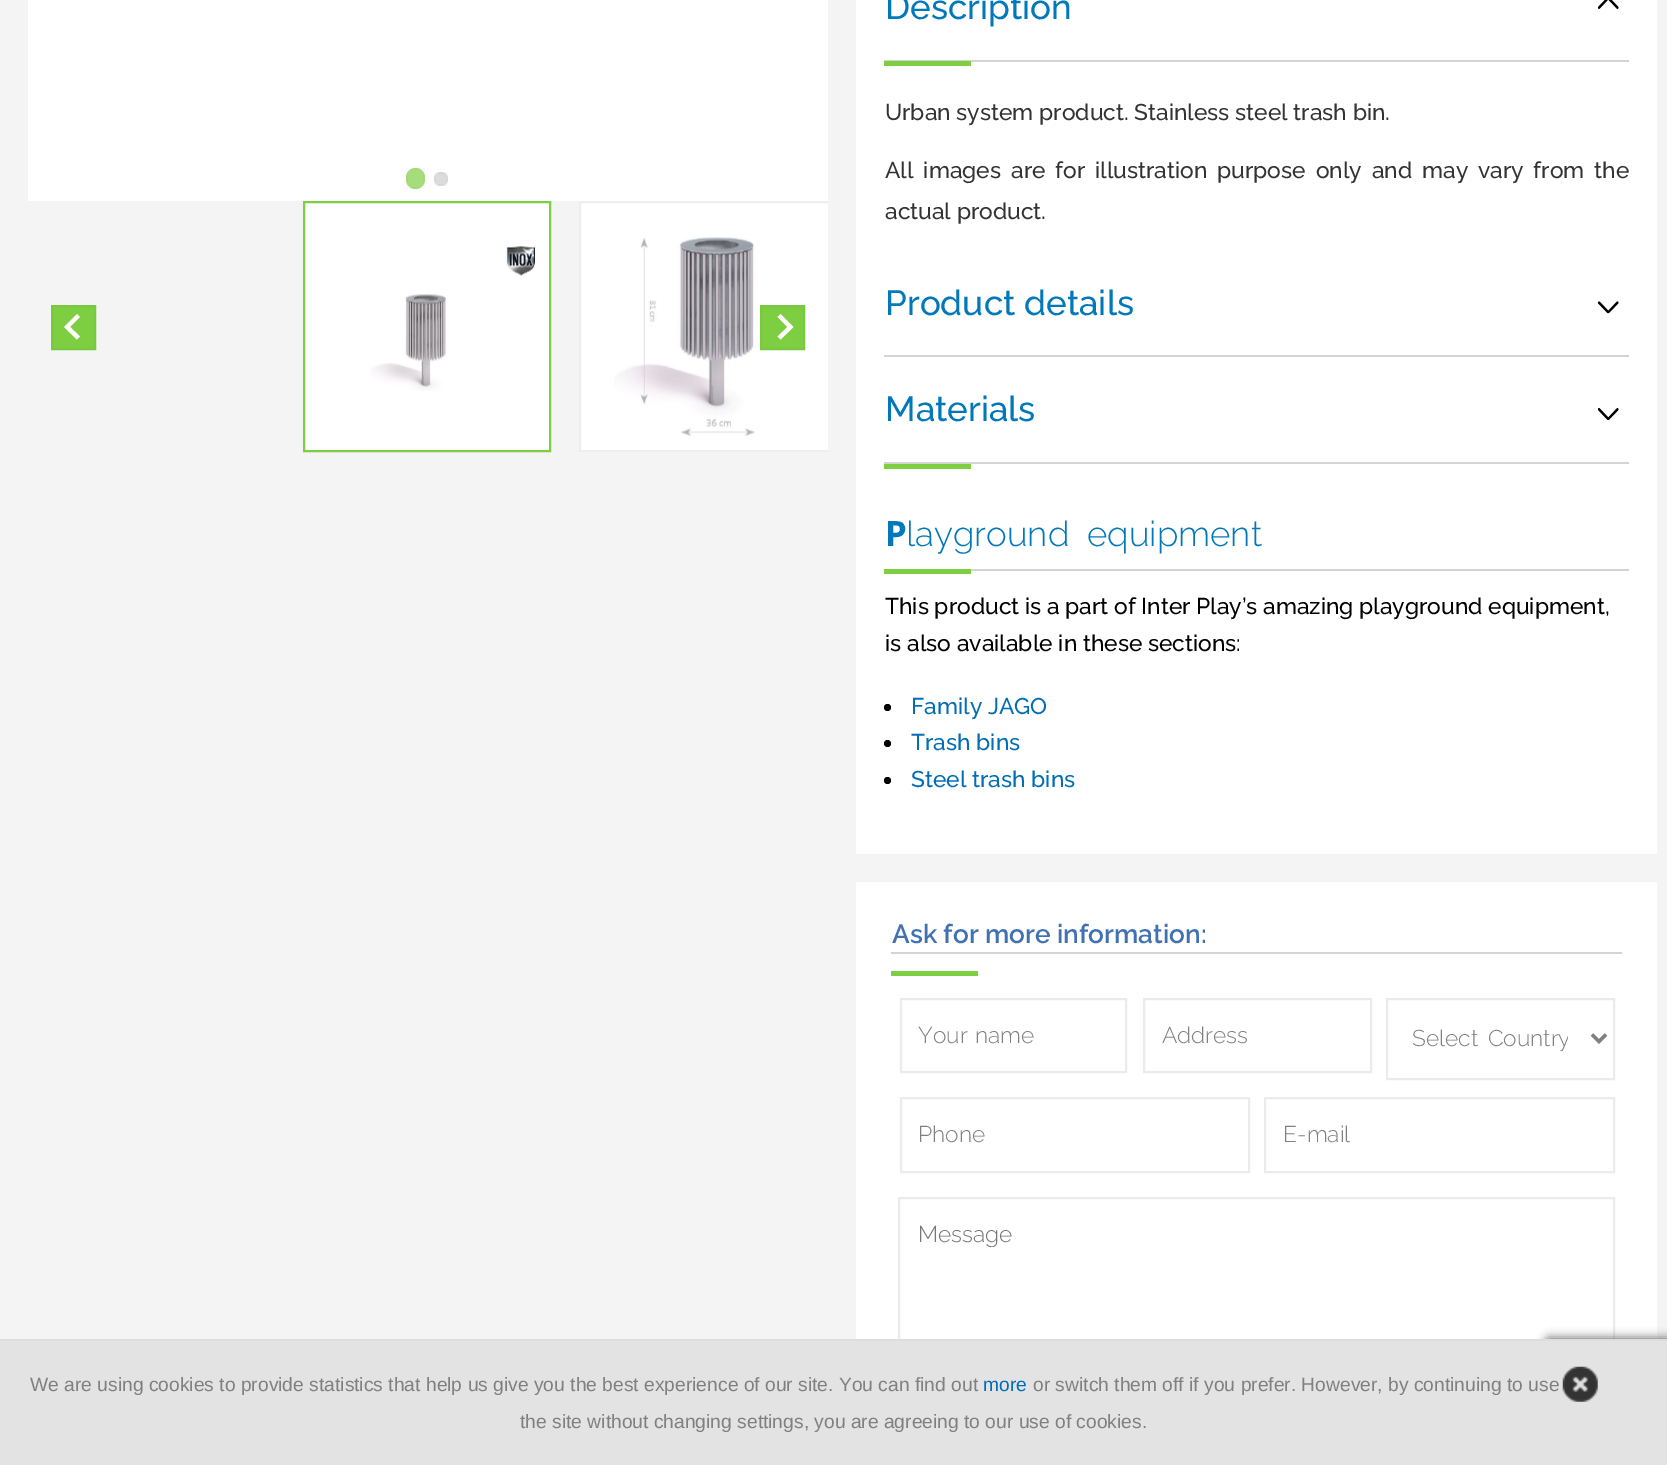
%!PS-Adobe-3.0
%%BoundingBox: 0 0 1667 1465
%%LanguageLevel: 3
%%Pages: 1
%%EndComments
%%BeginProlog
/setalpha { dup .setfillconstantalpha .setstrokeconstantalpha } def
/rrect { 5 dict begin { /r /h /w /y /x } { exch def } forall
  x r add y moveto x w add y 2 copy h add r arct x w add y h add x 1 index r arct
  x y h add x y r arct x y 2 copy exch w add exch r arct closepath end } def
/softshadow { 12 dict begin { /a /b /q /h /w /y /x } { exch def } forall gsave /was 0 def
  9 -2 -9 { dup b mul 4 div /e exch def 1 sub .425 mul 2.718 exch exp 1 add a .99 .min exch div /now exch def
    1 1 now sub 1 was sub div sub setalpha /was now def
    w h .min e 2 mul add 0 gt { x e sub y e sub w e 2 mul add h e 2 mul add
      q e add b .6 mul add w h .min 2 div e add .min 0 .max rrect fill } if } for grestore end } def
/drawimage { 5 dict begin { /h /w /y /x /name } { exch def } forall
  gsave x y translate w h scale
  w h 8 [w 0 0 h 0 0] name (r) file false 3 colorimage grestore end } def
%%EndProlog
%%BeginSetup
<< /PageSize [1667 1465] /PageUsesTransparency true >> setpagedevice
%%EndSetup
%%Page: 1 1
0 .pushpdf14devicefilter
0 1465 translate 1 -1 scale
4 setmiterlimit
0.957 setgray
0 0 1667 1465 rectfill
1 setgray
28 0 800 201 rectfill
0.647 0.867 0.478 setrgbcolor
406 168 19 21 9.5 rrect fill
0.03 setalpha
0.302 setgray
2 setlinewidth
407 169 17 19 rectstroke
1 setalpha
0.859 setgray
newpath 441 179 7 0 360 arc closepath fill
0.03 setalpha
0.302 setgray
435 173 12 12 rectstroke
1 setalpha
1 setgray
305 203 244 247 rectfill
(images/1.raw) 370 246 165 145 drawimage
0.494 0.808 0.255 setrgbcolor
304 202 246 249 rectstroke
1 setgray
581 203 247 247 rectfill
(images/2.raw) 614 237 141 199 drawimage
gsave
28 201 800 251 rectclip
0.933 setgray
580 202 249 249 rectstroke
grestore
0.494 0.808 0.255 setrgbcolor
newpath 52 306 moveto 95 306 lineto 95 349 lineto 52 349 lineto closepath gsave fill grestore
0.478 0.784 0.247 setrgbcolor
stroke
1 setgray
newpath 77 314 moveto 80 317 lineto 70 327 lineto 80 336.5 lineto 77 339.5 lineto 64 327 lineto closepath fill
0.494 0.808 0.255 setrgbcolor
newpath 761 306 moveto 804 306 lineto 804 349 lineto 761 349 lineto closepath gsave fill grestore
0.478 0.784 0.247 setrgbcolor
stroke
1 setgray
newpath 780.5 314 moveto 777.5 317 lineto 787.5 327 lineto 777.5 336.5 lineto 780.5 339.5 lineto 793.5 327 lineto closepath fill
856 0 801 854 rectfill
0.831 setgray
884 60 745 2 rectfill
(images/3.raw) 1598 0 21 9 drawimage
0.494 0.808 0.255 setrgbcolor
884 61 87 5 rectfill
0.831 setgray
884 355 745 2 rectfill
(images/4.raw) 1598 301 21 13 drawimage
884 462 745 2 rectfill
(images/5.raw) 1598 408 21 12 drawimage
0.494 0.808 0.255 setrgbcolor
884 464 87 5 rectfill
0.831 setgray
971 569 658 2 rectfill
0.494 0.808 0.255 setrgbcolor
884 569 87 5 rectfill
0 setgray
newpath 887.5 707.5 3.5 0 360 arc closepath fill
newpath 887.5 743.5 3.5 0 360 arc closepath fill
newpath 887.5 780.5 3.5 0 360 arc closepath fill
1 setgray
856 882 801 457 rectfill
0.831 setgray
891 952 731 2 rectfill
0.494 0.808 0.255 setrgbcolor
891 971 87 5 rectfill
0.922 setgray
901 999 225 73 rectstroke
1144 999 227 73 rectstroke
1387 999 227 80 rectstroke
0.502 setgray
3.5 setlinewidth
newpath 1592 1034.5 moveto 1599 1041.5 lineto 1606 1034.5 lineto stroke
0.922 setgray
2 setlinewidth
901 1098 348 74 rectstroke
1265 1098 349 74 rectstroke
899 1198 715 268 rectstroke
0.502 setgray
1545 1337 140 105 4 4.5 1 softshadow
0.89 setgray
0 1341 1667 124 rectfill
0.867 setgray
0 1339 1667 2 rectfill
(images/6.raw) 1562 1366 36 36 drawimage
/Raleway-Medium [35 0 0 -35 0 0] selectfont
0.004 0.471 0.729 setrgbcolor
885 19 moveto (Description) show
/Raleway-Medium [22.75 0 0 -22.75 0 0] selectfont
0.2 setgray
885 120 moveto (Urban system product. Stainless steel trash bin.) show
885 178 moveto 4.25 0 32 (All images are for illustration purpose only and may vary from the) widthshow
885 219 moveto (actual product.) show
/Raleway-Medium [35 0 0 -35 0 0] selectfont
0.004 0.471 0.729 setrgbcolor
885 315 moveto (Product details) show
885 421 moveto (Materials) show
/NotoSans-Bold [35 0 0 -35 0 0] selectfont
885 546 moveto (P) show
/Raleway-Light [35 0 0 -35 0 0] selectfont
906 546 moveto 9 0 32 (layground equipment) widthshow
/Raleway-Medium [22.75 0 0 -22.75 0 0] selectfont
0 setgray
885 614 moveto (This product is a part of Inter Play’s amazing playground equipment,) show
885 651 moveto (is also available in these sections:) show
0 0.427 0.71 setrgbcolor
911 714 moveto (Family JAGO) show
911 750 moveto (Trash bins) show
911 787 moveto (Steel trash bins) show
/Raleway-SemiBold [26.25 0 0 -26.25 0 0] selectfont
0.251 0.447 0.694 setrgbcolor
892 943 moveto (Ask for more information:) show
/Raleway-Light [22.75 0 0 -22.75 0 0] selectfont
0.502 setgray
918 1043 moveto 2 0 32 (Your name) widthshow
1162 1043 moveto (Address) show
gsave
1412 1024 156 30 rectclip
1412 1046 moveto 4 0 32 (Select Country) widthshow
grestore
918 1142 moveto (Phone) show
1283 1142 moveto (E-mail) show
0.459 setgray
918 1242 moveto (Message) show
/LiberationSans-Regular [19.25 0 0 -19.25 0 0] selectfont
0.502 setgray
30 1391 moveto (We are using cookies to provide statistics that help us give you the best experience of our site. You can find out) show
0 0.427 0.71 setrgbcolor
983 1391 moveto (more) show
0.502 setgray
1033 1391 moveto (or switch them off if you prefer. However, by continuing to use) show
520 1428 moveto (the site without changing settings, you are agreeing to our use of cookies.) show
.poppdf14devicefilter showpage
%%EOF
